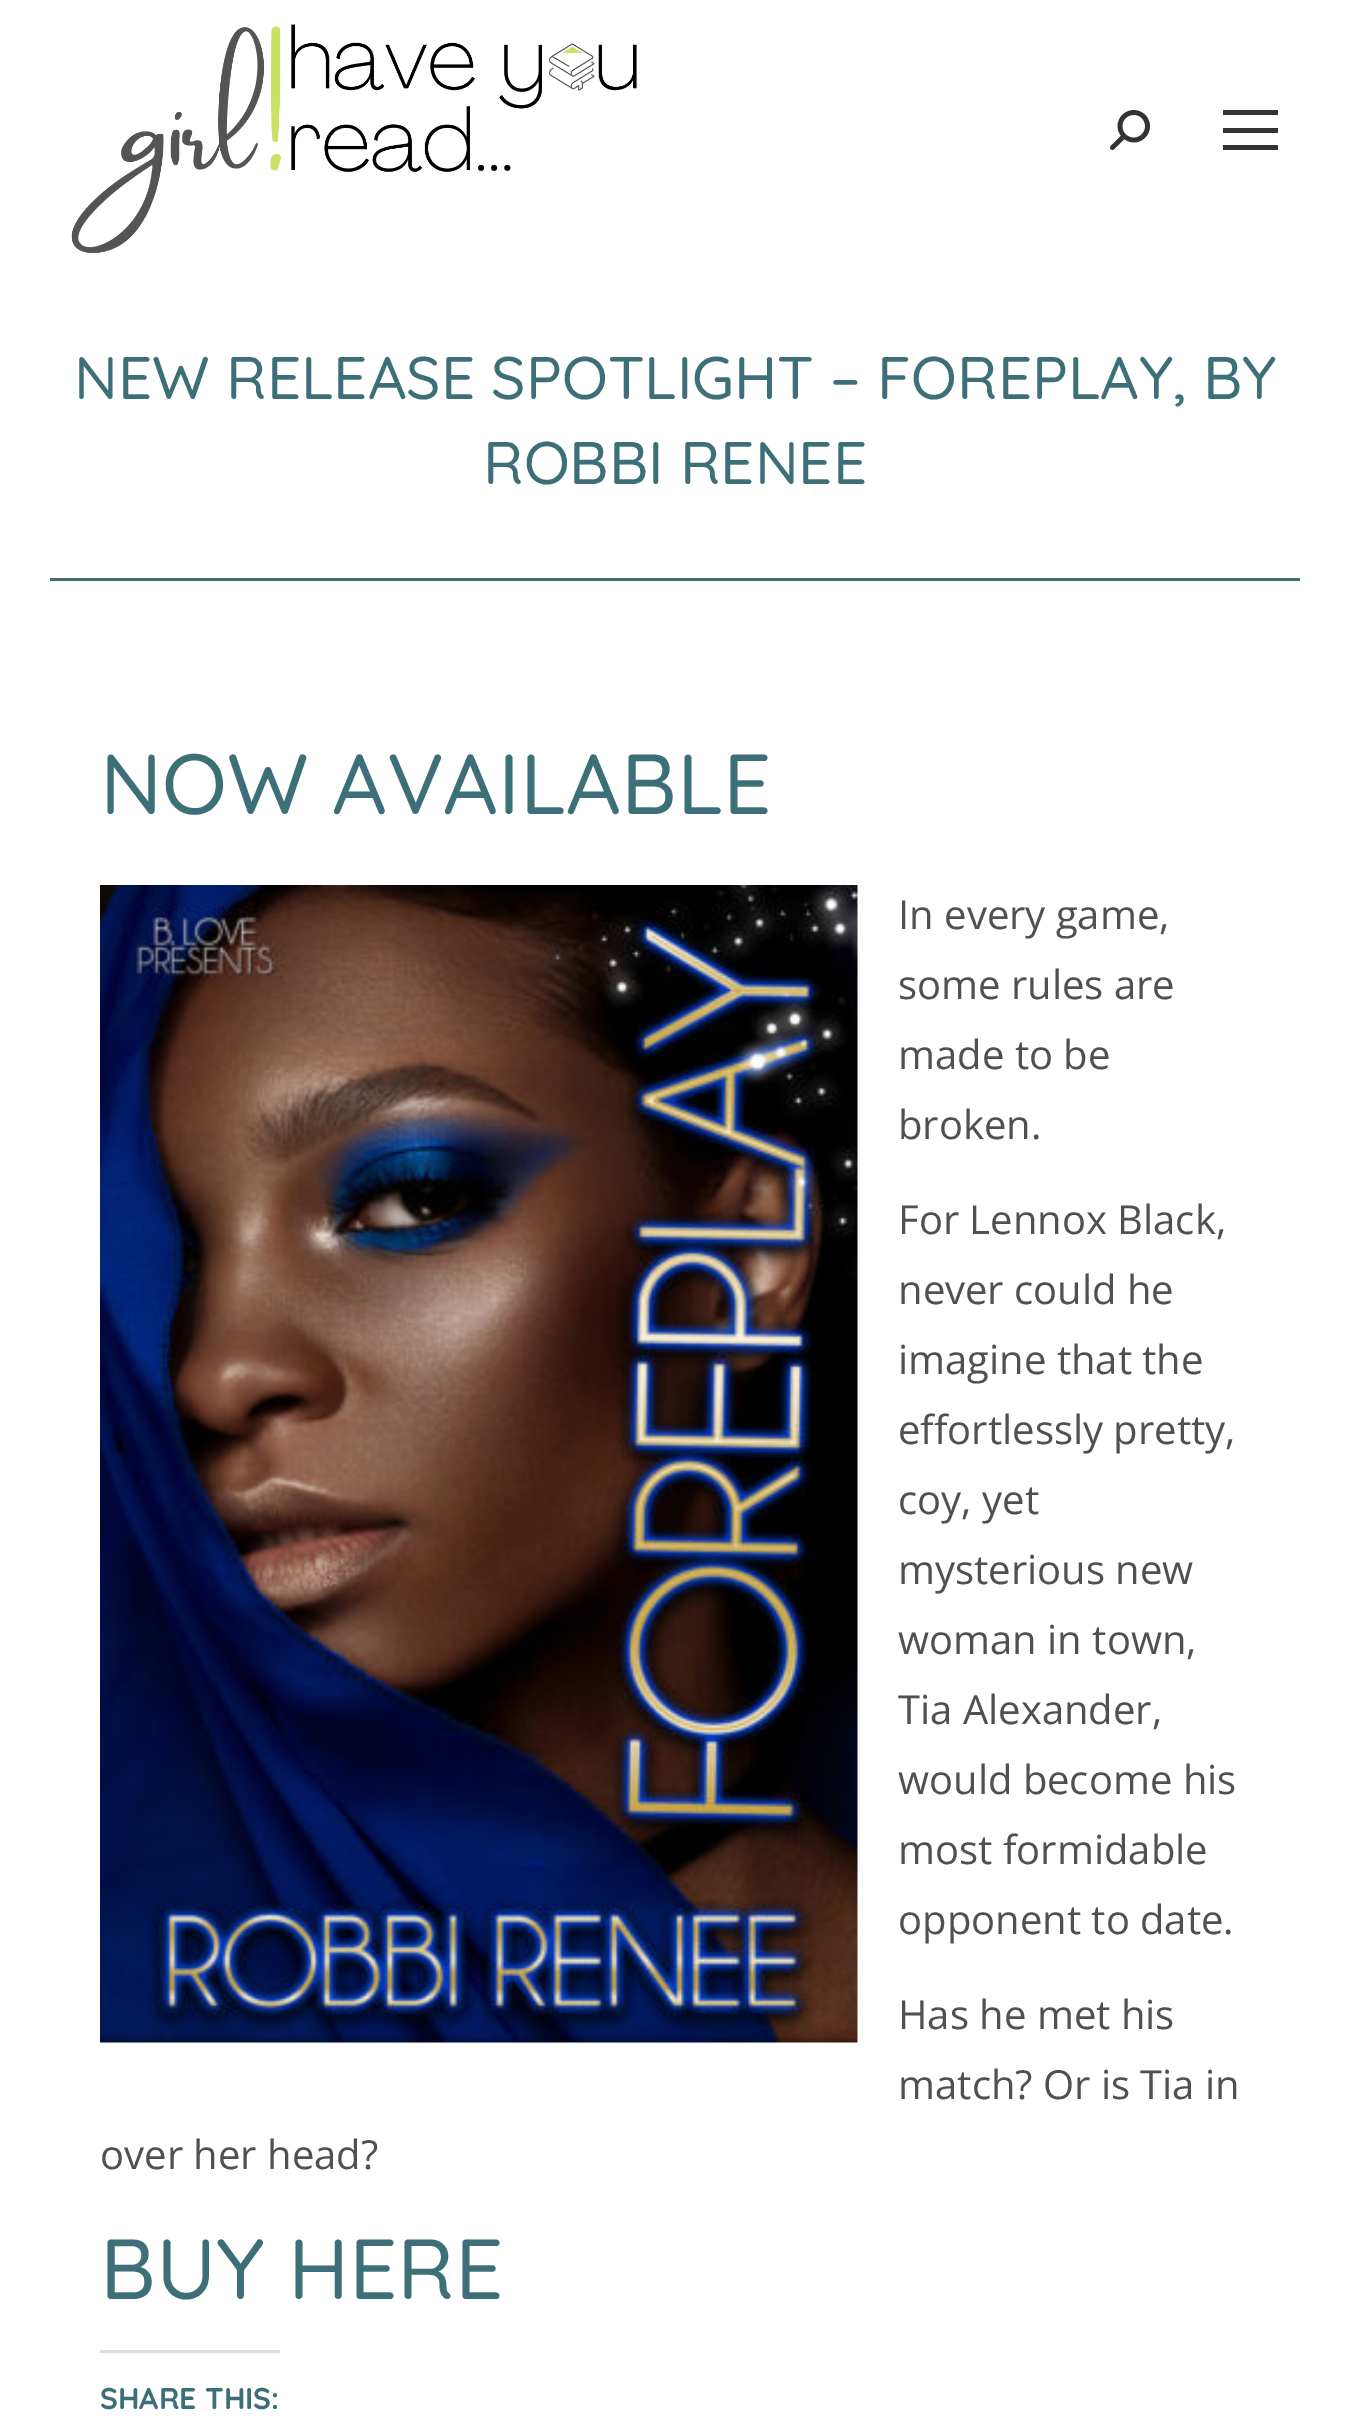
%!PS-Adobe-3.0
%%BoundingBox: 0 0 1349 2422
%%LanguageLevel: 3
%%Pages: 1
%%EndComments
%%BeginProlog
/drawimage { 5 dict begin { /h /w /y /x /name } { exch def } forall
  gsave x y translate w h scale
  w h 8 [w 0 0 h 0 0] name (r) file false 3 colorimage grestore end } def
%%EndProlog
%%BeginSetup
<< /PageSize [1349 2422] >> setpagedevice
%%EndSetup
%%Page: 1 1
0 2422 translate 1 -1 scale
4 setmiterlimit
1 setgray
0 0 1349 2422 rectfill
(images/1.raw) 71 24 566 229 drawimage
(images/2.raw) 1110 110 40 40 drawimage
0.2 setgray
1223 110 55 5 rectfill
1223 128 55 5 rectfill
1223 145 55 5 rectfill
0.239 0.435 0.471 setrgbcolor
50 578 1250 3 rectfill
(images/3.raw) 100 885 758 1158 drawimage
0.863 0.863 0.871 setrgbcolor
100 2350 180 3 rectfill
/Quicksand-Medium [60 0 0 -60 0 0] selectfont
0.239 0.435 0.471 setrgbcolor
74 399 moveto (NEW RELEASE SPOTLIGHT – FOREPLAY, BY) show
483 484 moveto (ROBBI RENEE) show
/Quicksand-Medium [85 0 0 -85 0 0] selectfont
100 814 moveto (NOW AVAILABLE) show
/OpenSans-Regular [40 0 0 -40 0 0] selectfont
0.314 setgray
898 929 moveto (In every game,) show
898 999 moveto (some rules are) show
898 1069 moveto (made to be) show
898 1139 moveto (broken.) show
898 1234 moveto (For Lennox Black,) show
898 1304 moveto (never could he) show
898 1374 moveto (imagine that the) show
898 1444 moveto (effortlessly pretty,) show
898 1514 moveto (coy, yet) show
898 1584 moveto (mysterious new) show
898 1654 moveto (woman in town,) show
898 1724 moveto (Tia Alexander,) show
898 1794 moveto (would become his) show
898 1864 moveto (most formidable) show
898 1934 moveto (opponent to date.) show
898 2029 moveto (Has he met his) show
898 2099 moveto (match? Or is Tia in) show
100 2169 moveto (over her head?) show
/Quicksand-Medium [85 0 0 -85 0 0] selectfont
0.239 0.435 0.471 setrgbcolor
100 2299 moveto (BUY HERE) show
/Quicksand-Bold [30 0 0 -30 0 0] selectfont
100 2409 moveto (SHARE THIS:) show
showpage
%%EOF
